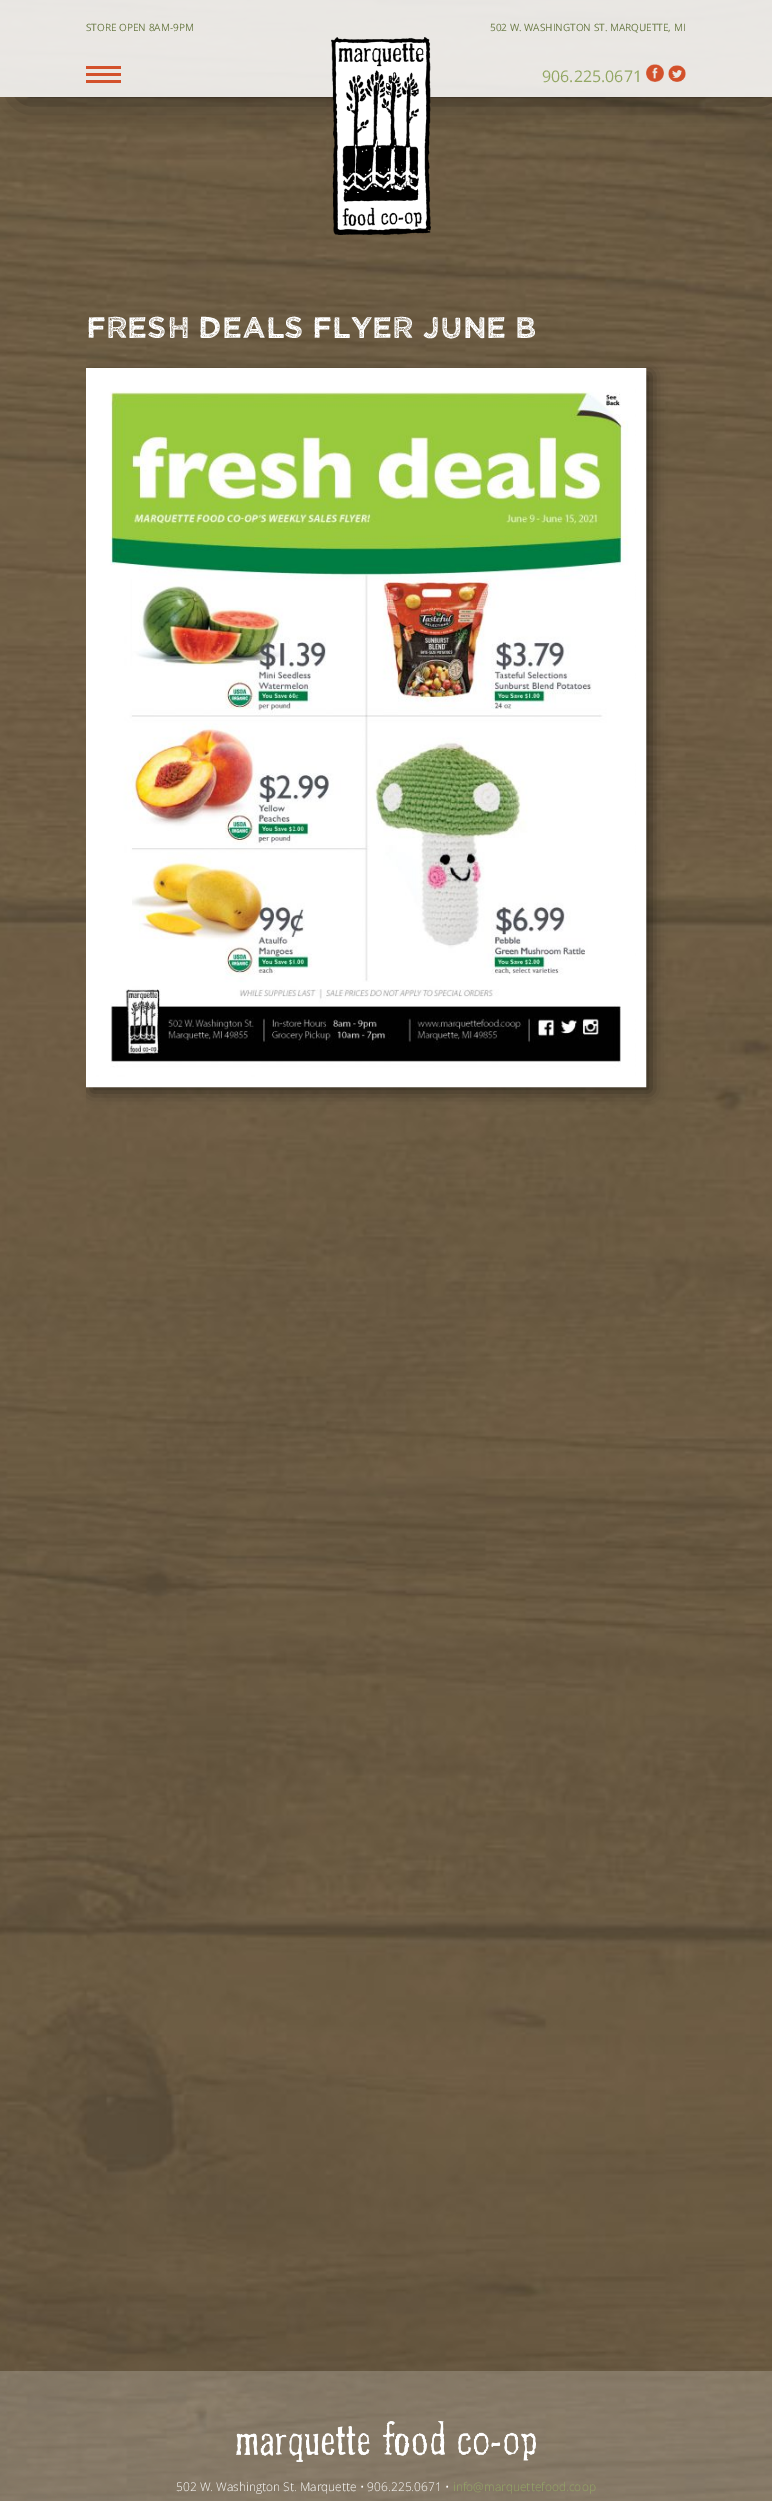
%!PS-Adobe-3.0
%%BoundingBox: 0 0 772 2501
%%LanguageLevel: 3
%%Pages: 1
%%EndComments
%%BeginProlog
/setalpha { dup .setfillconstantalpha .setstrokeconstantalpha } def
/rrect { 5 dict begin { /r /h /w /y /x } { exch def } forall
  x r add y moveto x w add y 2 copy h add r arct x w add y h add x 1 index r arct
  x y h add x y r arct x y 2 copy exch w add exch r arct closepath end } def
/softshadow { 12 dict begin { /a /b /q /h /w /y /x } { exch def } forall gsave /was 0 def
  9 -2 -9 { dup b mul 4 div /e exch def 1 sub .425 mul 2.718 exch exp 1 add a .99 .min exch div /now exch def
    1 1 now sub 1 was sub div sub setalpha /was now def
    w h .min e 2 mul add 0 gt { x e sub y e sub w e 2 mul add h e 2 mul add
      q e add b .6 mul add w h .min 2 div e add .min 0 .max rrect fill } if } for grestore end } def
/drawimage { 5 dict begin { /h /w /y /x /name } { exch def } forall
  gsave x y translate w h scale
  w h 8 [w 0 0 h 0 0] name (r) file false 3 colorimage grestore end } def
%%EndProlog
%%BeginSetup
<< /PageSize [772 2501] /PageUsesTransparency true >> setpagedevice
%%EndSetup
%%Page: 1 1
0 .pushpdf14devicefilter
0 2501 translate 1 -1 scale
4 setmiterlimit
1 setgray
0 0 772 2501 rectfill
(images/1.raw) 0 0 772 2501 drawimage
gsave
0 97 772 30 rectclip
0 setgray
23 23 746 71 0 17 0.75 softshadow
grestore
0.85 setalpha
0 0 772 97 rectfill
1 setalpha
(images/2.raw) 646 64 18 18 drawimage
(images/3.raw) 668 65 18 17 drawimage
0.827 0.318 0.169 setrgbcolor
86 66 35 3 rectfill
86 73 35 3 rectfill
86 80 35 3 rectfill
(images/4.raw) 331 37 100 198 drawimage
gsave
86 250 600 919 rectclip
0 setgray
91 373 560 719 0 7.5 0.5 softshadow
grestore
1 setgray
10 setlinewidth
91 373 550 709 rectstroke
(images/5.raw) 96 378 540 699 drawimage
0.2 setalpha
0 2371 772 130 rectfill
1 setalpha
(images/6.raw) 236 2421 300 41 drawimage
/OpenSans-Regular [10 0 0 -10 0 0] selectfont
0.416 0.478 0.271 setrgbcolor
86 31 moveto (STORE OPEN 8AM-9PM) show
490 31 moveto (502 W. WASHINGTON ST. MARQUETTE, MI) show
/OpenSans-Regular [16 0 0 -16 0 0] selectfont
0.576 0.655 0.392 setrgbcolor
542 82 moveto (906.225.0671) show
/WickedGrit-Bold [30 0 0 -30 0 0] selectfont
1 setgray
86 338 moveto (Fresh Deals Flyer June B) show
/OpenSans-Light [12 0 0 -12 0 0] selectfont
176 2491 moveto (502 W. Washington St. Marquette • 906.225.0671 •) show
0.576 0.655 0.392 setrgbcolor
453 2491 moveto (info@marquettefood.coop) show
.poppdf14devicefilter showpage
%%EOF
